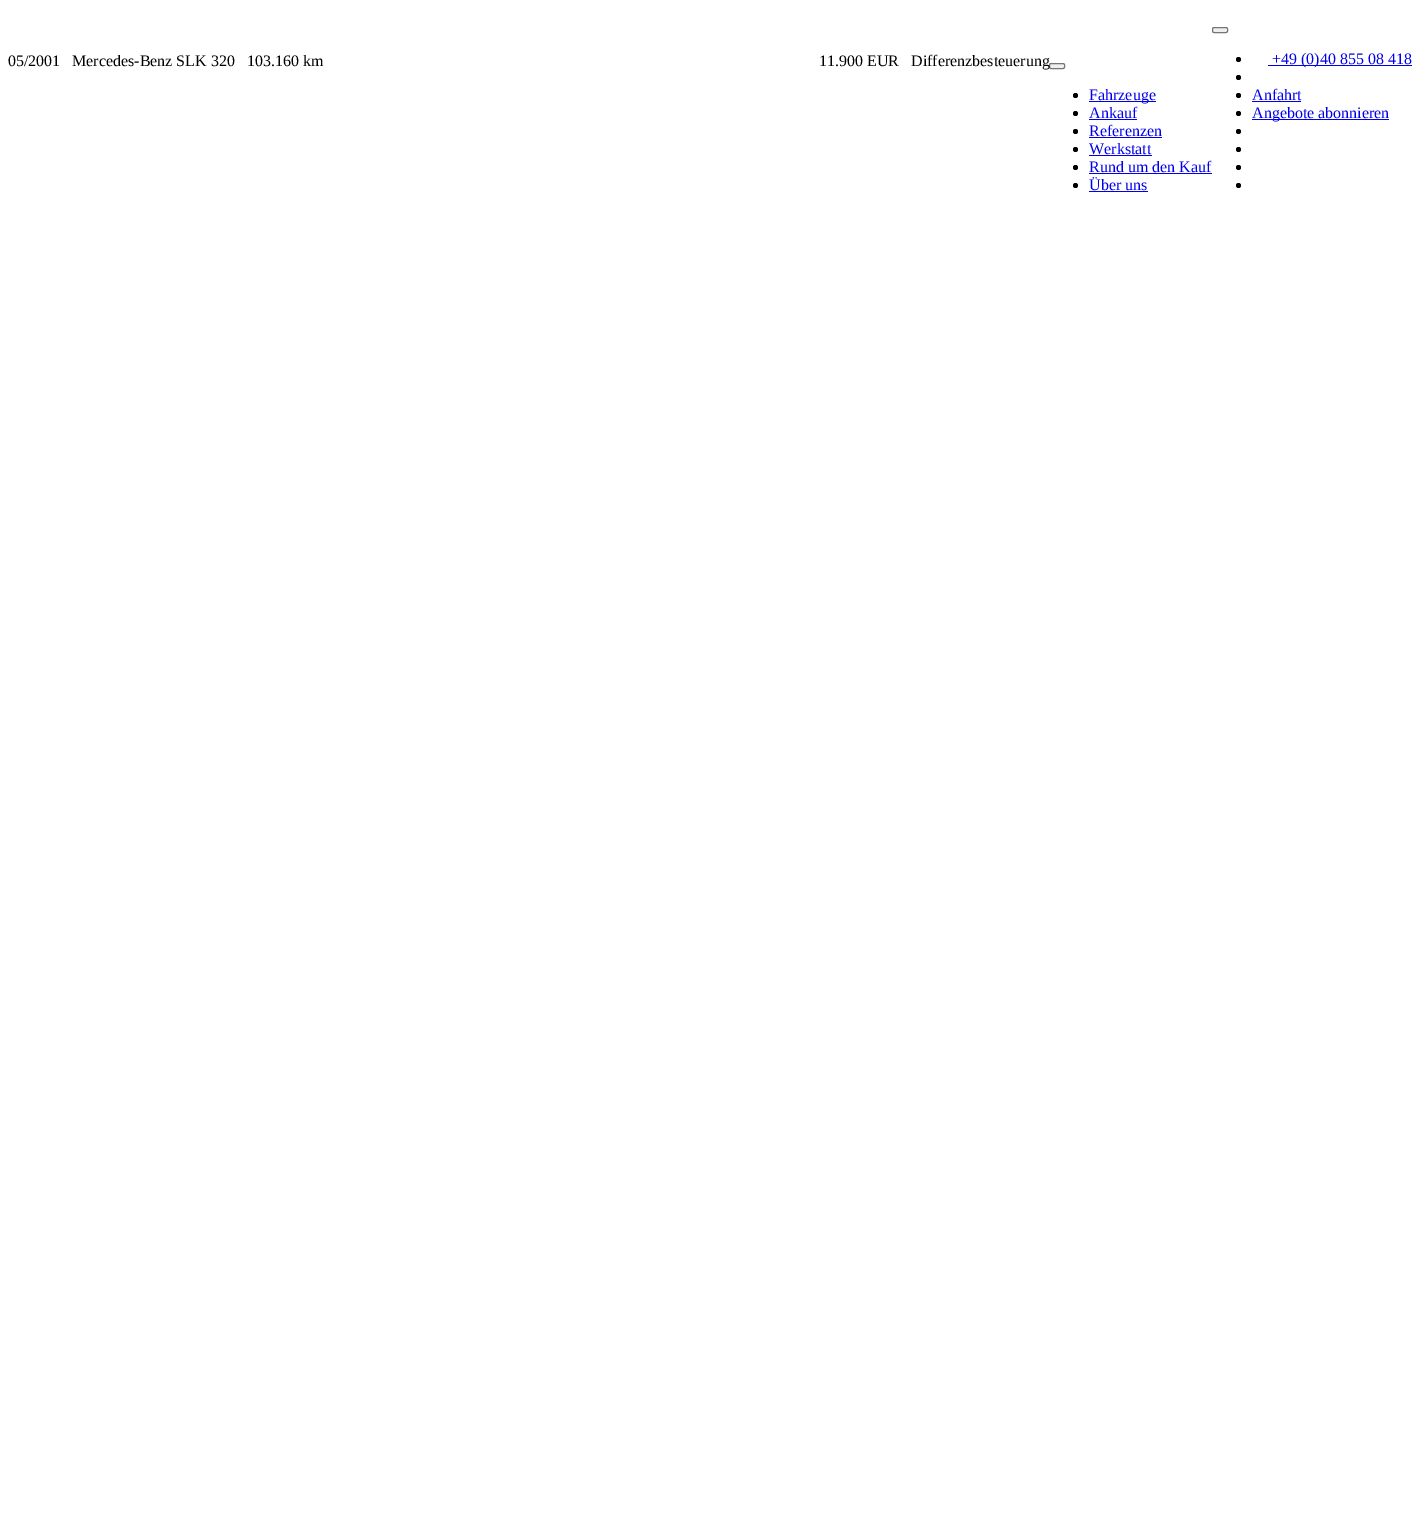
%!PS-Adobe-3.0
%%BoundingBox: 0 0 1420 1532
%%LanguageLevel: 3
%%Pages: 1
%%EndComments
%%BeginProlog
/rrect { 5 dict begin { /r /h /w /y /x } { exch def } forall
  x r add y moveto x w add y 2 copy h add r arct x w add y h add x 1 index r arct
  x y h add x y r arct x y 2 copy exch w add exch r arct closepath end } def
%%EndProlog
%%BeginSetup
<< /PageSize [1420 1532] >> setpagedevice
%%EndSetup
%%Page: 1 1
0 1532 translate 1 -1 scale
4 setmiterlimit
1 setgray
0 0 1420 1532 rectfill
0.937 setgray
1212.5 27.5 15 5 1.5 rrect gsave fill grestore
0.463 setgray
stroke
0 setgray
newpath 1238.5 59.5 2.5 0 360 arc closepath fill
0 0 0.933 setrgbcolor
1268 65 144 1 rectfill
0 setgray
newpath 1238.5 77.5 2.5 0 360 arc closepath fill
newpath 1238.5 95.5 2.5 0 360 arc closepath fill
0 0 0.933 setrgbcolor
1252 101 49 1 rectfill
0 setgray
newpath 1238.5 113.5 2.5 0 360 arc closepath fill
0 0 0.933 setrgbcolor
1252 119 137 1 rectfill
0 setgray
newpath 1238.5 131.5 2.5 0 360 arc closepath fill
newpath 1238.5 149.5 2.5 0 360 arc closepath fill
newpath 1238.5 167.5 2.5 0 360 arc closepath fill
newpath 1238.5 185.5 2.5 0 360 arc closepath fill
0.937 setgray
1049.5 63.5 15 5 1.5 rrect gsave fill grestore
0.463 setgray
stroke
0 setgray
newpath 1075.5 95.5 2.5 0 360 arc closepath fill
0 0 0.933 setrgbcolor
1089 101 67 1 rectfill
0 setgray
newpath 1075.5 113.5 2.5 0 360 arc closepath fill
0 0 0.933 setrgbcolor
1089 119 48 1 rectfill
0 setgray
newpath 1075.5 131.5 2.5 0 360 arc closepath fill
0 0 0.933 setrgbcolor
1089 137 73 1 rectfill
0 setgray
newpath 1075.5 149.5 2.5 0 360 arc closepath fill
0 0 0.933 setrgbcolor
1089 155 63 1 rectfill
0 setgray
newpath 1075.5 167.5 2.5 0 360 arc closepath fill
0 0 0.933 setrgbcolor
1089 173 123 1 rectfill
0 setgray
newpath 1075.5 185.5 2.5 0 360 arc closepath fill
0 0 0.933 setrgbcolor
1089 191 59 1 rectfill
/LiberationSerif-Regular [16 0 0 -16 0 0] selectfont
0 setgray
8 66 moveto (05/2001) show
72 66 moveto (Mercedes-Benz SLK 320) show
247 66 moveto (103.160 km) show
819 66 moveto (11.900 EUR) show
911 66 moveto (Differenzbesteuerung) show
0 0 0.933 setrgbcolor
1272 64 moveto (+49 \(0\)40 855 08 418) show
1252 100 moveto (Anfahrt) show
1252 118 moveto (Angebote abonnieren) show
1089 100 moveto (Fahrzeuge) show
1089 118 moveto (Ankauf) show
1089 136 moveto (Referenzen) show
1089 154 moveto (Werkstatt) show
1089 172 moveto (Rund um den Kauf) show
1089 190 moveto (Über uns) show
showpage
%%EOF
